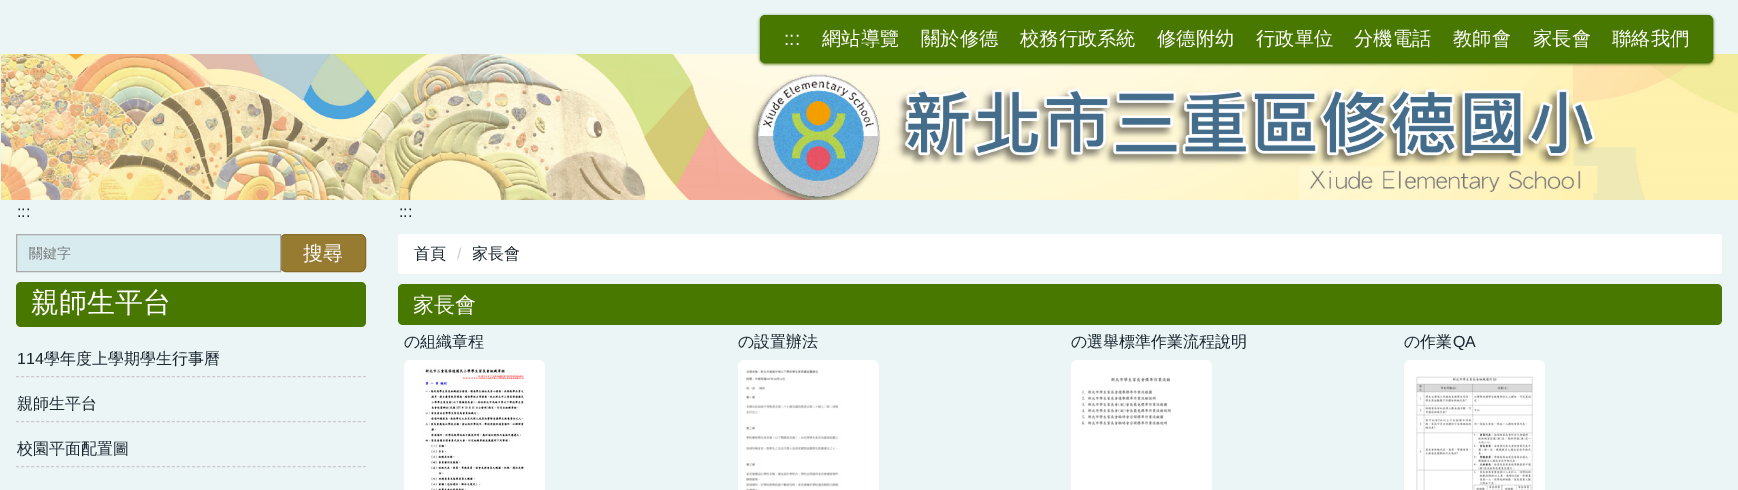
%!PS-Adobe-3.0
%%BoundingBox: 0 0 1738 490
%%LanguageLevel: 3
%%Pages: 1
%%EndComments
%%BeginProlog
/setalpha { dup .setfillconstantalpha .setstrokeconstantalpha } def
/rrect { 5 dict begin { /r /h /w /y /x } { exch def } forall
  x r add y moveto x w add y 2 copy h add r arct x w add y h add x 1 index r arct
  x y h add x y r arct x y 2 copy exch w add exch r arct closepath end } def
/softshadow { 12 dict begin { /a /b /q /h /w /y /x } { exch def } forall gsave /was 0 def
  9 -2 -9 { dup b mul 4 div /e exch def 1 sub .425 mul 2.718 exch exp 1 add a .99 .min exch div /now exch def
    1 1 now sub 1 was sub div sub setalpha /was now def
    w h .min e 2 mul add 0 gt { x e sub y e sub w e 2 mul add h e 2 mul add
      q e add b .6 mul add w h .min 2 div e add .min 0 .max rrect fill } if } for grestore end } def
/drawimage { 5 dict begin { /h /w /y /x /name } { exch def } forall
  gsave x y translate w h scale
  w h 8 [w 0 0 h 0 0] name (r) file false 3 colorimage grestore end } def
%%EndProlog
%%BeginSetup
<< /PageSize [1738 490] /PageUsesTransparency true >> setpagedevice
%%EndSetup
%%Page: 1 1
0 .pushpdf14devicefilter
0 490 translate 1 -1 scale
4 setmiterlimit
0.922 0.961 0.965 setrgbcolor
0 0 1738 490 rectfill
(images/1.raw) 1 54 1737 146 drawimage
0.286 0.451 0.035 setrgbcolor
760 16 953 48 5 1.5 1 softshadow
0.286 0.471 0 setrgbcolor
760.5 15.5 952 47 4.5 rrect gsave fill grestore
0.286 0.451 0.035 setrgbcolor
stroke
0.592 0.482 0.192 setrgbcolor
280.5 234.5 85 37 5.5 rrect gsave fill grestore
0.522 0.42 0.145 setrgbcolor
stroke
0.847 0.925 0.937 setrgbcolor
newpath 16.5 234.5 moveto 280.5 234.5 lineto 280.5 271.5 lineto 16.5 271.5 lineto closepath gsave fill grestore
0.667 setgray
stroke
0.286 0.471 0 setrgbcolor
16 282 350 45 5 rrect fill
0.8 setgray
[3 2.03] 0 setdash
newpath 16 376.5 moveto 366 376.5 lineto stroke
newpath 16 421.5 moveto 366 421.5 lineto stroke
newpath 16 466.5 moveto 366 466.5 lineto stroke
1 setgray
398 234 1324 40 4 rrect fill
0.286 0.471 0 setrgbcolor
398 284 1324 41 5 rrect fill
(images/2.raw) 404 360 141 130 drawimage
(images/3.raw) 738 360 141 130 drawimage
(images/4.raw) 1071 360 141 130 drawimage
(images/5.raw) 1404 360 141 130 drawimage
/LiberationSans-Regular [19.25 0 0 -19.25 0 0] selectfont
1 setgray
784 45 moveto (:::) show
/WenQuanYiZenHei-Medium [19.25 0 0 -19.25 0 0] selectfont
822 45 moveto (網站導覽) show
921 45 moveto (關於修德) show
1020 45 moveto (校務行政系統) show
1157 45 moveto (修德附幼) show
1256 45 moveto (行政單位) show
1354 45 moveto (分機電話) show
1453 45 moveto (教師會) show
1533 45 moveto (家長會) show
1612 45 moveto (聯絡我們) show
/LiberationSans-Regular [16 0 0 -16 0 0] selectfont
0.102 0.153 0.192 setrgbcolor
17 217 moveto (:::) show
/WenQuanYiZenHei-Medium [14 0 0 -14 0 0] selectfont
0.467 setgray
29 258 moveto (關鍵字) show
/WenQuanYiZenHei-Medium [20 0 0 -20 0 0] selectfont
1 setgray
303 260 moveto (搜尋) show
/WenQuanYiZenHei-Medium [28 0 0 -28 0 0] selectfont
31 312 moveto (親師生平台) show
/LiberationSans-Regular [16 0 0 -16 0 0] selectfont
0.102 0.153 0.192 setrgbcolor
17 364 moveto (114) show
/WenQuanYiZenHei-Medium [16 0 0 -16 0 0] selectfont
44 364 moveto (學年度上學期學生行事曆) show
17 409 moveto (親師生平台) show
17 454 moveto (校園平面配置圖) show
/LiberationSans-Regular [16 0 0 -16 0 0] selectfont
399 217 moveto (:::) show
/WenQuanYiZenHei-Medium [16 0 0 -16 0 0] selectfont
414 259 moveto (首頁) show
/LiberationSans-Regular [16 0 0 -16 0 0] selectfont
0.8 setgray
457 259 moveto (/) show
/WenQuanYiZenHei-Medium [16 0 0 -16 0 0] selectfont
0.102 0.153 0.192 setrgbcolor
472 259 moveto (家長會) show
/WenQuanYiZenHei-Medium [21 0 0 -21 0 0] selectfont
1 setgray
413 312 moveto (家長會) show
/WenQuanYiZenHei-Medium [16 0 0 -16 0 0] selectfont
0.102 0.153 0.192 setrgbcolor
404 347 moveto (の組織章程) show
738 347 moveto (の設置辦法) show
1071 347 moveto (の選舉標準作業流程說明) show
1404 347 moveto (の作業) show
/LiberationSans-Regular [16 0 0 -16 0 0] selectfont
1453 347 moveto (QA) show
.poppdf14devicefilter showpage
%%EOF
